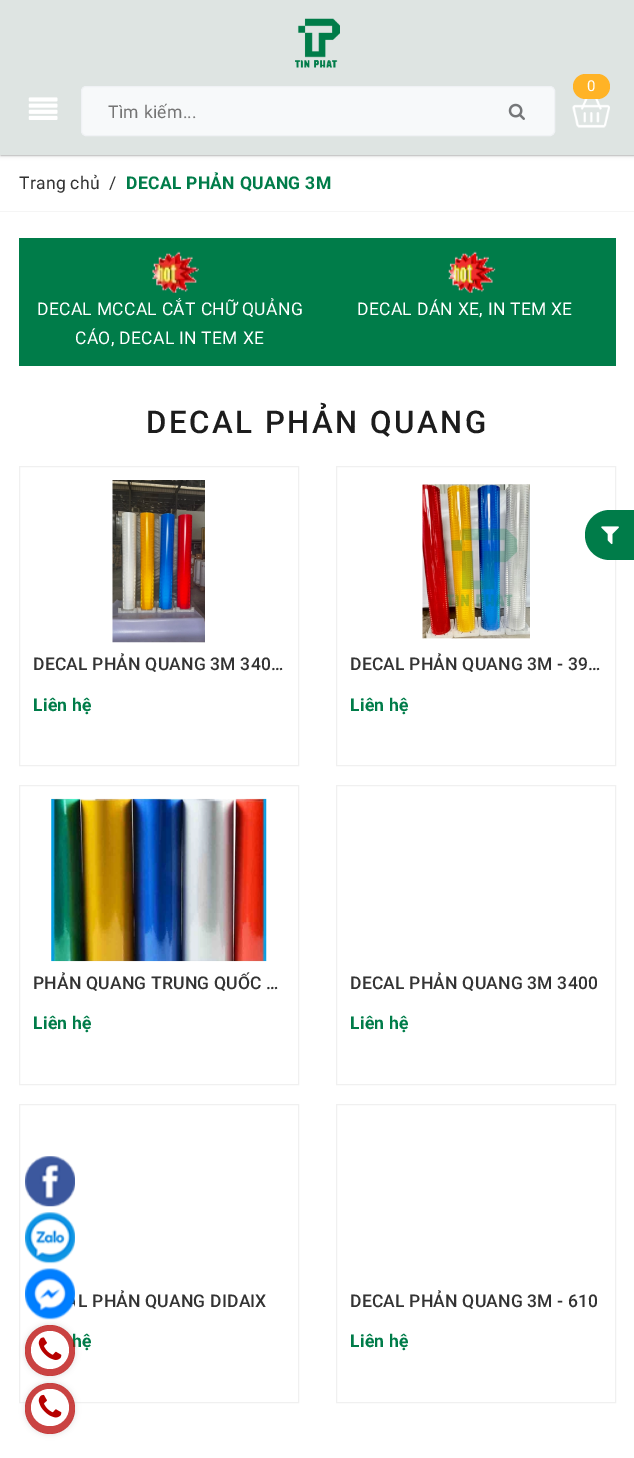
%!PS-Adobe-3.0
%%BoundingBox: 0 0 634 1458
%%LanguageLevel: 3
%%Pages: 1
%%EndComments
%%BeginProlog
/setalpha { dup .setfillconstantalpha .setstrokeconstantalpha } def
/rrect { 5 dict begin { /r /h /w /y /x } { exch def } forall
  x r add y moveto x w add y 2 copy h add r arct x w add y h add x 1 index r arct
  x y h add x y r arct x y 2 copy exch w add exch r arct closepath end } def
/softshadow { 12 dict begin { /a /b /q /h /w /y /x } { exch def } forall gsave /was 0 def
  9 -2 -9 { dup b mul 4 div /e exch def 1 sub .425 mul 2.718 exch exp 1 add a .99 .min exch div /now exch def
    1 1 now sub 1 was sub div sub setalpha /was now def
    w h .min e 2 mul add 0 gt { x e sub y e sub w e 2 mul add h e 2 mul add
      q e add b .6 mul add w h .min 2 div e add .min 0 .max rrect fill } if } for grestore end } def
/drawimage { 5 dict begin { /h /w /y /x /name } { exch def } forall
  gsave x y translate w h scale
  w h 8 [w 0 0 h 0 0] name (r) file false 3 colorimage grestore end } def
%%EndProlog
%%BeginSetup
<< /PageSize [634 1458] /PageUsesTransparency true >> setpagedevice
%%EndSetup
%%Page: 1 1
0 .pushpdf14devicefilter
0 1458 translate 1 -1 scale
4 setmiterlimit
1 setgray
0 0 634 1458 rectfill
0.961 setgray
0 155 634 1 rectfill
0 setgray
1 4 633 152 0 0.5 0.12 softshadow
0 1 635 155 0 2 0.12 softshadow
0.871 0.894 0.886 setrgbcolor
0 0 634 155 rectfill
(images/1.raw) 295 18 45 50 drawimage
(images/2.raw) 572 98 38 30 drawimage
1 0.702 0.149 setrgbcolor
573 74 37 25 12.5 rrect fill
(images/3.raw) 28 97 30 23 drawimage
0.969 0.976 0.98 setrgbcolor
81.5 86.5 473 49 4.5 rrect gsave fill grestore
0.941 0.949 0.961 setrgbcolor
stroke
(images/4.raw) 508 103 17 17 drawimage
0.961 setgray
0 211 634 1 rectfill
0 0.486 0.286 setrgbcolor
19 238 597 128 rectfill
(images/5.raw) 152 251 47 42 drawimage
(images/6.raw) 448 251 48 42 drawimage
0.941 setgray
19.5 466.5 279 299 rectstroke
(images/7.raw) 112 480 93 163 drawimage
336.5 466.5 279 299 rectstroke
(images/8.raw) 422 484 108 155 drawimage
19.5 785.5 279 299 rectstroke
(images/9.raw) 51 798 216 164 drawimage
336.5 785.5 279 299 rectstroke
19.5 1104.5 279 298 rectstroke
336.5 1104.5 279 298 rectstroke
0 0.486 0.286 setrgbcolor
newpath 610 510 moveto 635 510 lineto 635 560 lineto 610 560 lineto 596 560 585 549 585 535 curveto 585 521 596 510 610 510 curveto closepath fill
(images/10.raw) 601 526 18 19 drawimage
(images/11.raw) 25 1156 50 51 drawimage
(images/12.raw) 25 1212 50 52 drawimage
gsave
newpath 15 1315 moveto 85 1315 lineto 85 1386 lineto 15 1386 lineto closepath 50 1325 moveto 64 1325 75 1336 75 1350 curveto 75 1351 lineto 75 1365 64 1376 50 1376 curveto 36 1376 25 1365 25 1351 curveto 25 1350 lineto 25 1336 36 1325 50 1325 curveto closepath eoclip newpath
0.867 setgray
25 1325 50 51 25 3 1 softshadow
grestore
(images/13.raw) 25 1268 50 52 drawimage
/Roboto-Regular [15 0 0 -15 0 0] selectfont
1 setgray
587 91 moveto 0.3 0 (0) ashow
/Roboto-Regular [17.5 0 0 -17.5 0 0] selectfont
0.459 setgray
108 118 moveto 0.3 0 (Tìm kiếm...) ashow
0.2 setgray
19 189 moveto 0.3 0 (Trang chủ) ashow
109 189 moveto 0.3 0 (/) ashow
/Roboto-Bold [17.5 0 0 -17.5 0 0] selectfont
0 0.486 0.286 setrgbcolor
126 189 moveto 0.3 0 (DECAL PHẢN QUANG 3M) ashow
/Roboto-Regular [17.5 0 0 -17.5 0 0] selectfont
1 setgray
37 315 moveto 0.3 0 (DECAL MCCAL CẮT CHỮ QUẢNG) ashow
75 344 moveto 0.3 0 (CÁO, DECAL IN TEM XE) ashow
357 315 moveto 0.3 0 (DECAL DÁN XE, IN TEM XE) ashow
/Roboto-Medium [31.25 0 0 -31.25 0 0] selectfont
0.11 setgray
146 433 moveto 2.5 0 (DECAL PHẢN QUANG) ashow
/Roboto-Medium [17.5 0 0 -17.5 0 0] selectfont
0.2 setgray
33 670 moveto 0.2 0 (DECAL PHẢN QUANG 3M 340…) ashow
/Roboto-Bold [17.5 0 0 -17.5 0 0] selectfont
0 0.486 0.286 setrgbcolor
33 711 moveto 0.3 0 (Liên hệ) ashow
/Roboto-Medium [17.5 0 0 -17.5 0 0] selectfont
0.2 setgray
350 670 moveto 0.2 0 (DECAL PHẢN QUANG 3M - 39…) ashow
/Roboto-Bold [17.5 0 0 -17.5 0 0] selectfont
0 0.486 0.286 setrgbcolor
350 711 moveto 0.3 0 (Liên hệ) ashow
/Roboto-Medium [17.5 0 0 -17.5 0 0] selectfont
0.2 setgray
33 989 moveto 0.2 0 (PHẢN QUANG TRUNG QUỐC …) ashow
/Roboto-Bold [17.5 0 0 -17.5 0 0] selectfont
0 0.486 0.286 setrgbcolor
33 1029 moveto 0.3 0 (Liên hệ) ashow
/Roboto-Medium [17.5 0 0 -17.5 0 0] selectfont
0.2 setgray
350 989 moveto 0.2 0 (DECAL PHẢN QUANG 3M 3400) ashow
/Roboto-Bold [17.5 0 0 -17.5 0 0] selectfont
0 0.486 0.286 setrgbcolor
350 1029 moveto 0.3 0 (Liên hệ) ashow
/Roboto-Medium [17.5 0 0 -17.5 0 0] selectfont
0.2 setgray
78 1307 moveto 0.2 0 (L PHẢN QUANG DIDAIX) ashow
/Roboto-Bold [17.5 0 0 -17.5 0 0] selectfont
0 0.486 0.286 setrgbcolor
72 1347 moveto 0.3 0 (hệ) ashow
/Roboto-Medium [17.5 0 0 -17.5 0 0] selectfont
0.2 setgray
350 1307 moveto 0.2 0 (DECAL PHẢN QUANG 3M - 610) ashow
/Roboto-Bold [17.5 0 0 -17.5 0 0] selectfont
0 0.486 0.286 setrgbcolor
350 1347 moveto 0.3 0 (Liên hệ) ashow
0.74 setalpha
0.718 0.004 0 setrgbcolor
25 1325 50 51 25 rrect fill
1 setalpha
1 setgray
newpath 50 1350 19 0 360 arc closepath fill
(images/14.raw) 38 1337 24 23 drawimage
gsave
newpath 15 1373 moveto 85 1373 lineto 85 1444 lineto 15 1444 lineto closepath 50 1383 moveto 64 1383 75 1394 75 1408 curveto 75 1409 lineto 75 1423 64 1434 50 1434 curveto 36 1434 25 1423 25 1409 curveto 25 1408 lineto 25 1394 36 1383 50 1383 curveto closepath eoclip newpath
0.867 setgray
25 1383 50 51 25 3 1 softshadow
grestore
0.74 setalpha
0.718 0.004 0 setrgbcolor
25 1383 50 51 25 rrect fill
1 setalpha
1 setgray
31 1389 38 37 18.5 rrect fill
(images/15.raw) 38 1394 24 24 drawimage
.poppdf14devicefilter showpage
%%EOF
